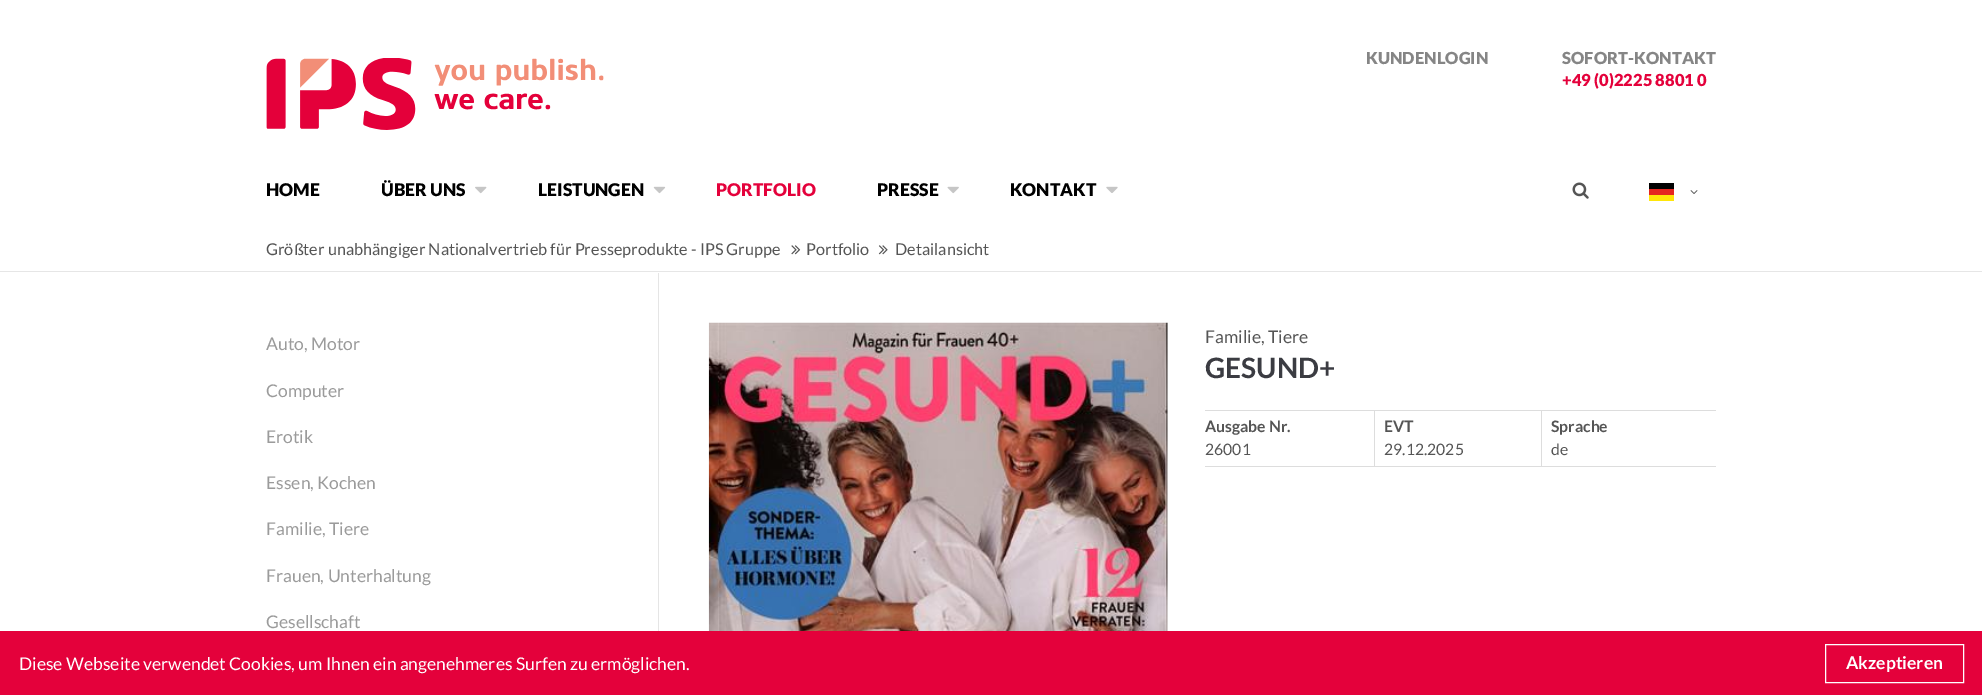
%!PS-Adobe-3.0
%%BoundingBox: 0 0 1982 695
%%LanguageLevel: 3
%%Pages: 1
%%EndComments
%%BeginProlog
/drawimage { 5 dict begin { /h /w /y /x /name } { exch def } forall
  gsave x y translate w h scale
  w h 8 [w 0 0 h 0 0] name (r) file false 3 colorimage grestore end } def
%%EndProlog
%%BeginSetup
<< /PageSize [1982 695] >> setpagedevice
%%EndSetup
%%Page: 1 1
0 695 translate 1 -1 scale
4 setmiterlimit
1 setgray
0 0 1982 695 rectfill
(images/1.raw) 266 58 338 72 drawimage
(images/2.raw) 475 186 12 8 drawimage
(images/3.raw) 653 186 13 8 drawimage
(images/4.raw) 947 186 12 8 drawimage
(images/5.raw) 1106 186 12 7 drawimage
(images/6.raw) 1572 182 17 17 drawimage
0.004 0.008 0.008 setrgbcolor
1649 183 25 6 rectfill
0.898 0.149 0.125 setrgbcolor
1649 189 25 6 rectfill
(images/7.raw) 1690 190 8 4 drawimage
1 0.902 0.035 setrgbcolor
1649 195 25 6 rectfill
0.902 setgray
0 271 1982 1 rectfill
(images/8.raw) 791 245 10 10 drawimage
(images/9.raw) 878 245 10 10 drawimage
0.898 setgray
658 273 1 358 rectfill
(images/10.raw) 708 322 460 309 drawimage
0.867 setgray
1205 410 511 1 rectfill
1205 466 511 1 rectfill
1541 411 1 55 rectfill
1374 411 1 55 rectfill
0.894 0.004 0.231 setrgbcolor
0 631 1982 64 rectfill
1 setgray
1825.5 644.5 138 38 rectstroke
/Lato-Black [16.6 0 0 -16.6 0 0] selectfont
0.522 setgray
1366 64 moveto (KUNDENLOGIN) show
1562 64 moveto (SOFORT-KONTAKT) show
0.894 0.004 0.231 setrgbcolor
1562 86 moveto (+49 \(0\)2225 8801 0) show
/Lato-Black [17.5 0 0 -17.5 0 0] selectfont
0 setgray
266 196 moveto (HOME) show
381 196 moveto (ÜBER UNS) show
538 196 moveto (LEISTUNGEN) show
0.894 0.004 0.231 setrgbcolor
716 196 moveto (PORTFOLIO) show
0 setgray
877 196 moveto (PRESSE) show
1010 196 moveto (KONTAKT) show
/Lato-Regular [16.25 0 0 -16.25 0 0] selectfont
0.333 setgray
266 255 moveto (Größter unabhängiger Nationalvertrieb für Presseprodukte - IPS Gruppe) show
806 255 moveto (Portfolio) show
895 255 moveto (Detailansicht) show
/Lato-Regular [17.5 0 0 -17.5 0 0] selectfont
0.608 setgray
266 350 moveto (Auto, Motor) show
266 397 moveto (Computer) show
266 443 moveto (Erotik) show
266 489 moveto (Essen, Kochen) show
266 535 moveto (Familie, Tiere) show
266 582 moveto (Frauen, Unterhaltung) show
266 628 moveto (Gesellschaft) show
0.333 setgray
1205 343 moveto (Familie, Tiere) show
/Lato-Bold [28 0 0 -28 0 0] selectfont
0.231 0.235 0.259 setrgbcolor
1205 378 moveto (GESUND+) show
/Lato-Bold [15.75 0 0 -15.75 0 0] selectfont
0.333 setgray
1205 432 moveto (Ausgabe Nr.) show
/Lato-Regular [15.75 0 0 -15.75 0 0] selectfont
1205 455 moveto (26001) show
/Lato-Bold [15.75 0 0 -15.75 0 0] selectfont
1384 432 moveto (EVT) show
/Lato-Regular [15.75 0 0 -15.75 0 0] selectfont
1384 455 moveto (29.12.2025) show
/Lato-Bold [15.75 0 0 -15.75 0 0] selectfont
1551 432 moveto (Sprache) show
/Lato-Regular [15.75 0 0 -15.75 0 0] selectfont
1551 455 moveto (de) show
/Lato-Regular [17.5 0 0 -17.5 0 0] selectfont
1 setgray
19 670 moveto (Diese Webseite verwendet Cookies, um Ihnen ein angenehmeres Surfen zu ermöglichen.) show
/Lato-Bold [17.5 0 0 -17.5 0 0] selectfont
1846 669 moveto (Akzeptieren) show
showpage
%%EOF
